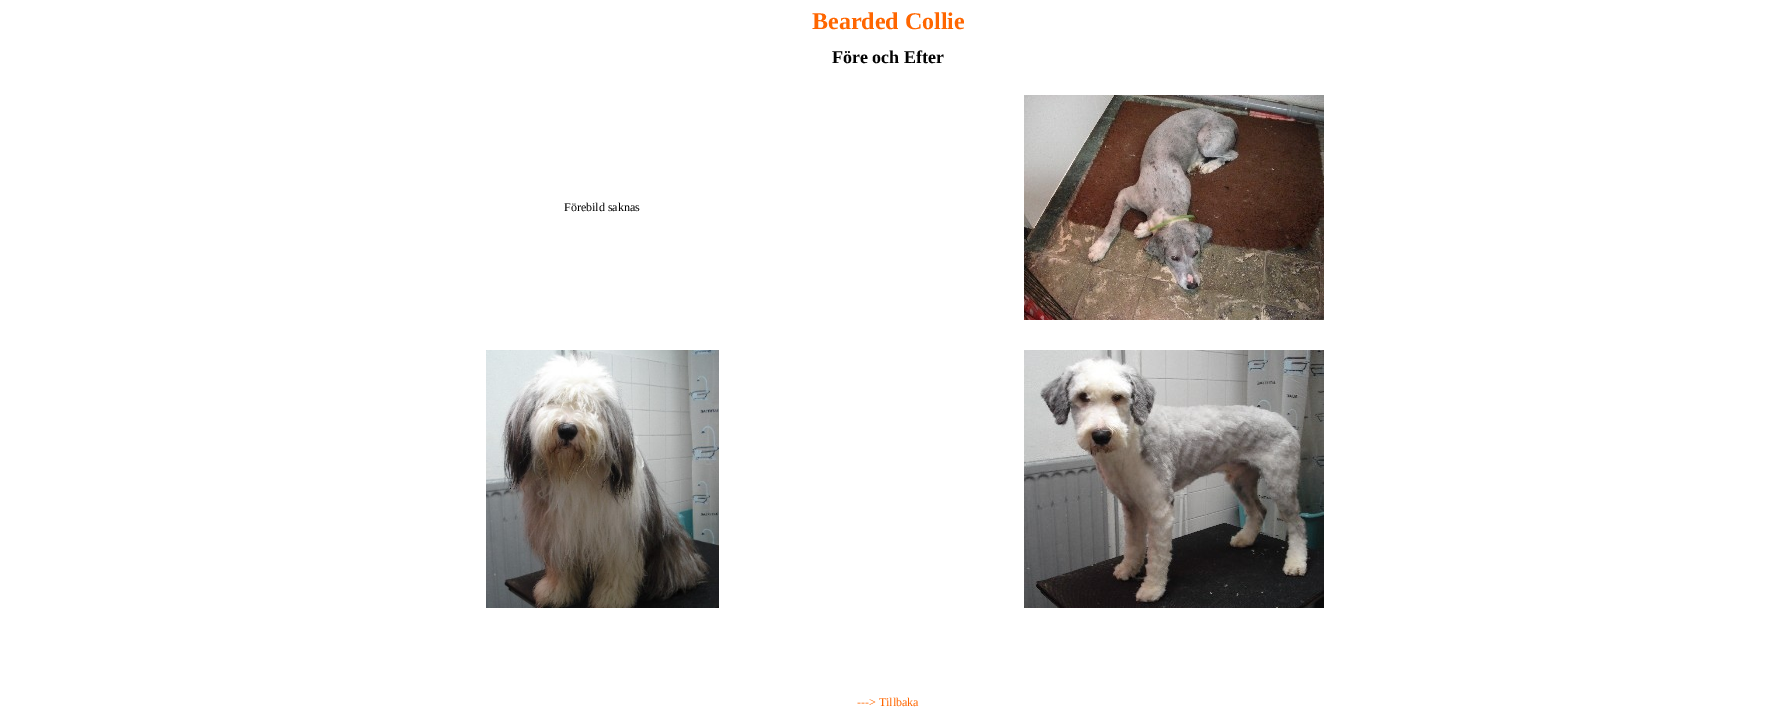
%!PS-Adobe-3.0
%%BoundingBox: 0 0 1776 728
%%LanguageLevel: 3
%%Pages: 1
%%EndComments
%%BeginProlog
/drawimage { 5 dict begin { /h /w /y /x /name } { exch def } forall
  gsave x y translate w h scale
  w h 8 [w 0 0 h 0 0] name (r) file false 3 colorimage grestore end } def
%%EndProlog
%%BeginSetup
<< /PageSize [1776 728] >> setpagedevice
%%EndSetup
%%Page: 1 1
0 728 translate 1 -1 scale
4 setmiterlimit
1 setgray
0 0 1776 728 rectfill
(images/1.raw) 1024 95 300 225 drawimage
(images/2.raw) 486 350 233 258 drawimage
(images/3.raw) 1024 350 300 258 drawimage
/LiberationSerif-Bold [24 0 0 -24 0 0] selectfont
1 0.4 0 setrgbcolor
812 29 moveto (Bearded Collie) show
/LiberationSerif-Bold [18 0 0 -18 0 0] selectfont
0.008 setgray
832 63 moveto (Före och Efter) show
/LiberationSerif-Regular [12 0 0 -12 0 0] selectfont
564 211 moveto (Förebild saknas) show
1 0.4 0 setrgbcolor
857 706 moveto (---> Tillbaka) show
showpage
%%EOF
